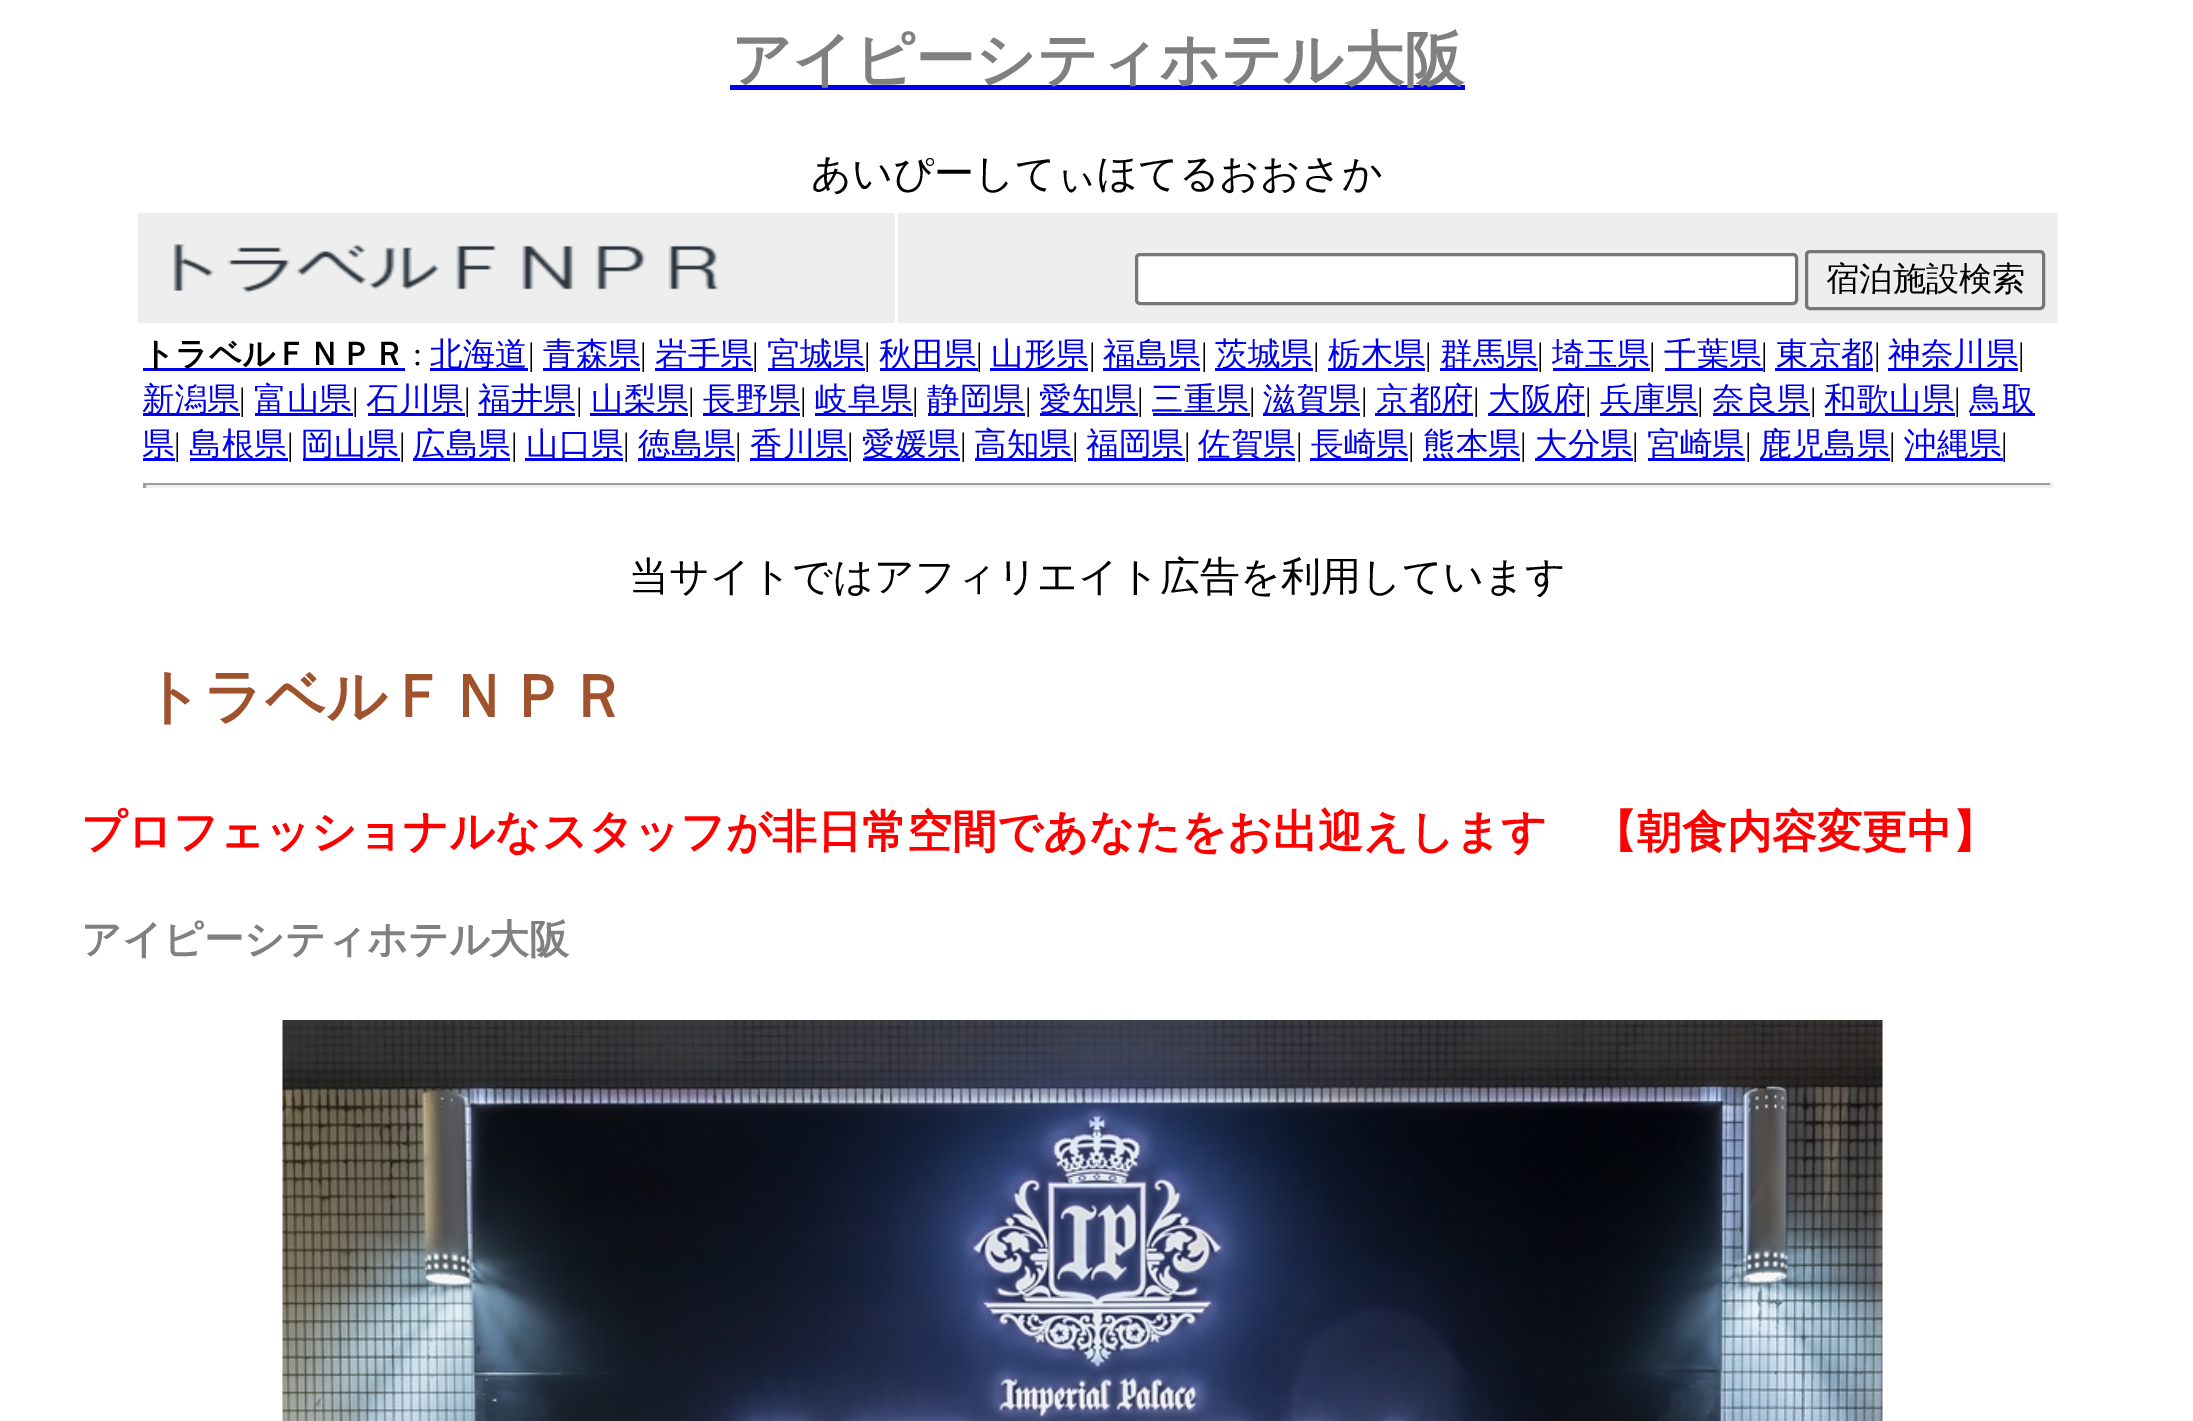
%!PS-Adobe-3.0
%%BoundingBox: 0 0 2193 1421
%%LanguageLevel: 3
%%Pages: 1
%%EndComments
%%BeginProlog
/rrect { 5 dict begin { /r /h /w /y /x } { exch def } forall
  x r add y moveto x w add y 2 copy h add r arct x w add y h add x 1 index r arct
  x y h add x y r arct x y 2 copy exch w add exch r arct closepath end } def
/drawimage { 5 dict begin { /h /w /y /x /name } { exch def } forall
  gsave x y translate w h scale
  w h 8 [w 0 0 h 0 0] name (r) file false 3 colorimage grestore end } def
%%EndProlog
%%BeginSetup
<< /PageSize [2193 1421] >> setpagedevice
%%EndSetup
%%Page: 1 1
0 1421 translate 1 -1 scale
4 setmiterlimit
1 setgray
0 0 2193 1421 rectfill
0 0 0.933 setrgbcolor
730 85 735 5 rectfill
0.933 setgray
138 213 757 110 rectfill
(images/1.raw) 173 244 546 49 drawimage
898 213 1160 110 rectfill
1 setgray
1136.5 254.5 660 49 3.5 rrect gsave fill grestore
0.463 setgray
3 setlinewidth
stroke
1806.5 251.5 237 57 3.5 rrect stroke
0 0 0.933 setrgbcolor
143 368 262 3 rectfill
430 368 98 3 rectfill
543 368 97 3 rectfill
655 368 98 3 rectfill
768 368 97 3 rectfill
880 368 98 3 rectfill
990 368 98 3 rectfill
1103 368 97 3 rectfill
1215 368 98 3 rectfill
1328 368 97 3 rectfill
1440 368 98 3 rectfill
1553 368 97 3 rectfill
1665 368 98 3 rectfill
1775 368 98 3 rectfill
1888 368 130 3 rectfill
143 413 97 3 rectfill
255 413 98 3 rectfill
368 413 97 3 rectfill
478 413 97 3 rectfill
590 413 98 3 rectfill
703 413 97 3 rectfill
815 413 98 3 rectfill
928 413 97 3 rectfill
1040 413 98 3 rectfill
1153 413 97 3 rectfill
1263 413 97 3 rectfill
1375 413 98 3 rectfill
1488 413 97 3 rectfill
1600 413 98 3 rectfill
1713 413 97 3 rectfill
1825 413 130 3 rectfill
1970 413 65 3 rectfill
143 458 32 3 rectfill
190 458 98 3 rectfill
303 458 97 3 rectfill
413 458 97 3 rectfill
525 458 98 3 rectfill
638 458 97 3 rectfill
750 458 98 3 rectfill
863 458 97 3 rectfill
975 458 98 3 rectfill
1088 458 97 3 rectfill
1198 458 97 3 rectfill
1310 458 98 3 rectfill
1423 458 97 3 rectfill
1535 458 98 3 rectfill
1648 458 97 3 rectfill
1760 458 130 3 rectfill
1905 458 98 3 rectfill
0.624 setgray
143 483 1910 2 rectfill
0.933 setgray
2050 483 3 5 rectfill
143 485 1910 3 rectfill
0.624 setgray
143 483 3 5 rectfill
(images/2.raw) 282 1020 1601 401 drawimage
/WenQuanYiZenHei-Bold [60 0 0 -60 0 0] selectfont
0.502 setgray
731 80 moveto (アイピーシティホテル大阪) show
/WenQuanYiZenHei-Medium [40 0 0 -40 0 0] selectfont
0 setgray
811 187 moveto (あいぴーしてぃほてるおおさか) show
/WenQuanYiZenHei-Medium [33.25 0 0 -33.25 0 0] selectfont
1826 290 moveto (宿泊施設検索) show
/WenQuanYiZenHei-Bold [32.5 0 0 -32.5 0 0] selectfont
142 365 moveto (トラベルＦＮＰＲ) show
/LiberationSerif-Regular [32.5 0 0 -32.5 0 0] selectfont
413 365 moveto (:) show
/WenQuanYiZenHei-Medium [32.5 0 0 -32.5 0 0] selectfont
0 0 0.933 setrgbcolor
430 365 moveto (北海道) show
/LiberationSerif-Regular [32.5 0 0 -32.5 0 0] selectfont
0 setgray
528 365 moveto (|) show
/WenQuanYiZenHei-Medium [32.5 0 0 -32.5 0 0] selectfont
0 0 0.933 setrgbcolor
543 365 moveto (青森県) show
/LiberationSerif-Regular [32.5 0 0 -32.5 0 0] selectfont
0 setgray
640 365 moveto (|) show
/WenQuanYiZenHei-Medium [32.5 0 0 -32.5 0 0] selectfont
0 0 0.933 setrgbcolor
655 365 moveto (岩手県) show
/LiberationSerif-Regular [32.5 0 0 -32.5 0 0] selectfont
0 setgray
752 365 moveto (|) show
/WenQuanYiZenHei-Medium [32.5 0 0 -32.5 0 0] selectfont
0 0 0.933 setrgbcolor
767 365 moveto (宮城県) show
/LiberationSerif-Regular [32.5 0 0 -32.5 0 0] selectfont
0 setgray
864 365 moveto (|) show
/WenQuanYiZenHei-Medium [32.5 0 0 -32.5 0 0] selectfont
0 0 0.933 setrgbcolor
879 365 moveto (秋田県) show
/LiberationSerif-Regular [32.5 0 0 -32.5 0 0] selectfont
0 setgray
976 365 moveto (|) show
/WenQuanYiZenHei-Medium [32.5 0 0 -32.5 0 0] selectfont
0 0 0.933 setrgbcolor
991 365 moveto (山形県) show
/LiberationSerif-Regular [32.5 0 0 -32.5 0 0] selectfont
0 setgray
1089 365 moveto (|) show
/WenQuanYiZenHei-Medium [32.5 0 0 -32.5 0 0] selectfont
0 0 0.933 setrgbcolor
1103 365 moveto (福島県) show
/LiberationSerif-Regular [32.5 0 0 -32.5 0 0] selectfont
0 setgray
1201 365 moveto (|) show
/WenQuanYiZenHei-Medium [32.5 0 0 -32.5 0 0] selectfont
0 0 0.933 setrgbcolor
1215 365 moveto (茨城県) show
/LiberationSerif-Regular [32.5 0 0 -32.5 0 0] selectfont
0 setgray
1313 365 moveto (|) show
/WenQuanYiZenHei-Medium [32.5 0 0 -32.5 0 0] selectfont
0 0 0.933 setrgbcolor
1328 365 moveto (栃木県) show
/LiberationSerif-Regular [32.5 0 0 -32.5 0 0] selectfont
0 setgray
1425 365 moveto (|) show
/WenQuanYiZenHei-Medium [32.5 0 0 -32.5 0 0] selectfont
0 0 0.933 setrgbcolor
1440 365 moveto (群馬県) show
/LiberationSerif-Regular [32.5 0 0 -32.5 0 0] selectfont
0 setgray
1537 365 moveto (|) show
/WenQuanYiZenHei-Medium [32.5 0 0 -32.5 0 0] selectfont
0 0 0.933 setrgbcolor
1552 365 moveto (埼玉県) show
/LiberationSerif-Regular [32.5 0 0 -32.5 0 0] selectfont
0 setgray
1649 365 moveto (|) show
/WenQuanYiZenHei-Medium [32.5 0 0 -32.5 0 0] selectfont
0 0 0.933 setrgbcolor
1664 365 moveto (千葉県) show
/LiberationSerif-Regular [32.5 0 0 -32.5 0 0] selectfont
0 setgray
1761 365 moveto (|) show
/WenQuanYiZenHei-Medium [32.5 0 0 -32.5 0 0] selectfont
0 0 0.933 setrgbcolor
1776 365 moveto (東京都) show
/LiberationSerif-Regular [32.5 0 0 -32.5 0 0] selectfont
0 setgray
1874 365 moveto (|) show
/WenQuanYiZenHei-Medium [32.5 0 0 -32.5 0 0] selectfont
0 0 0.933 setrgbcolor
1888 365 moveto (神奈川県) show
/LiberationSerif-Regular [32.5 0 0 -32.5 0 0] selectfont
0 setgray
2018 365 moveto (|) show
/WenQuanYiZenHei-Medium [32.5 0 0 -32.5 0 0] selectfont
0 0 0.933 setrgbcolor
142 410 moveto (新潟県) show
/LiberationSerif-Regular [32.5 0 0 -32.5 0 0] selectfont
0 setgray
239 410 moveto (|) show
/WenQuanYiZenHei-Medium [32.5 0 0 -32.5 0 0] selectfont
0 0 0.933 setrgbcolor
254 410 moveto (富山県) show
/LiberationSerif-Regular [32.5 0 0 -32.5 0 0] selectfont
0 setgray
352 410 moveto (|) show
/WenQuanYiZenHei-Medium [32.5 0 0 -32.5 0 0] selectfont
0 0 0.933 setrgbcolor
366 410 moveto (石川県) show
/LiberationSerif-Regular [32.5 0 0 -32.5 0 0] selectfont
0 setgray
464 410 moveto (|) show
/WenQuanYiZenHei-Medium [32.5 0 0 -32.5 0 0] selectfont
0 0 0.933 setrgbcolor
478 410 moveto (福井県) show
/LiberationSerif-Regular [32.5 0 0 -32.5 0 0] selectfont
0 setgray
576 410 moveto (|) show
/WenQuanYiZenHei-Medium [32.5 0 0 -32.5 0 0] selectfont
0 0 0.933 setrgbcolor
591 410 moveto (山梨県) show
/LiberationSerif-Regular [32.5 0 0 -32.5 0 0] selectfont
0 setgray
688 410 moveto (|) show
/WenQuanYiZenHei-Medium [32.5 0 0 -32.5 0 0] selectfont
0 0 0.933 setrgbcolor
703 410 moveto (長野県) show
/LiberationSerif-Regular [32.5 0 0 -32.5 0 0] selectfont
0 setgray
800 410 moveto (|) show
/WenQuanYiZenHei-Medium [32.5 0 0 -32.5 0 0] selectfont
0 0 0.933 setrgbcolor
815 410 moveto (岐阜県) show
/LiberationSerif-Regular [32.5 0 0 -32.5 0 0] selectfont
0 setgray
912 410 moveto (|) show
/WenQuanYiZenHei-Medium [32.5 0 0 -32.5 0 0] selectfont
0 0 0.933 setrgbcolor
927 410 moveto (静岡県) show
/LiberationSerif-Regular [32.5 0 0 -32.5 0 0] selectfont
0 setgray
1025 410 moveto (|) show
/WenQuanYiZenHei-Medium [32.5 0 0 -32.5 0 0] selectfont
0 0 0.933 setrgbcolor
1039 410 moveto (愛知県) show
/LiberationSerif-Regular [32.5 0 0 -32.5 0 0] selectfont
0 setgray
1137 410 moveto (|) show
/WenQuanYiZenHei-Medium [32.5 0 0 -32.5 0 0] selectfont
0 0 0.933 setrgbcolor
1151 410 moveto (三重県) show
/LiberationSerif-Regular [32.5 0 0 -32.5 0 0] selectfont
0 setgray
1249 410 moveto (|) show
/WenQuanYiZenHei-Medium [32.5 0 0 -32.5 0 0] selectfont
0 0 0.933 setrgbcolor
1263 410 moveto (滋賀県) show
/LiberationSerif-Regular [32.5 0 0 -32.5 0 0] selectfont
0 setgray
1361 410 moveto (|) show
/WenQuanYiZenHei-Medium [32.5 0 0 -32.5 0 0] selectfont
0 0 0.933 setrgbcolor
1376 410 moveto (京都府) show
/LiberationSerif-Regular [32.5 0 0 -32.5 0 0] selectfont
0 setgray
1473 410 moveto (|) show
/WenQuanYiZenHei-Medium [32.5 0 0 -32.5 0 0] selectfont
0 0 0.933 setrgbcolor
1488 410 moveto (大阪府) show
/LiberationSerif-Regular [32.5 0 0 -32.5 0 0] selectfont
0 setgray
1585 410 moveto (|) show
/WenQuanYiZenHei-Medium [32.5 0 0 -32.5 0 0] selectfont
0 0 0.933 setrgbcolor
1600 410 moveto (兵庫県) show
/LiberationSerif-Regular [32.5 0 0 -32.5 0 0] selectfont
0 setgray
1697 410 moveto (|) show
/WenQuanYiZenHei-Medium [32.5 0 0 -32.5 0 0] selectfont
0 0 0.933 setrgbcolor
1712 410 moveto (奈良県) show
/LiberationSerif-Regular [32.5 0 0 -32.5 0 0] selectfont
0 setgray
1810 410 moveto (|) show
/WenQuanYiZenHei-Medium [32.5 0 0 -32.5 0 0] selectfont
0 0 0.933 setrgbcolor
1824 410 moveto (和歌山県) show
/LiberationSerif-Regular [32.5 0 0 -32.5 0 0] selectfont
0 setgray
1954 410 moveto (|) show
/WenQuanYiZenHei-Medium [32.5 0 0 -32.5 0 0] selectfont
0 0 0.933 setrgbcolor
1969 410 moveto (鳥取) show
142 455 moveto (県) show
/LiberationSerif-Regular [32.5 0 0 -32.5 0 0] selectfont
0 setgray
174 455 moveto (|) show
/WenQuanYiZenHei-Medium [32.5 0 0 -32.5 0 0] selectfont
0 0 0.933 setrgbcolor
189 455 moveto (島根県) show
/LiberationSerif-Regular [32.5 0 0 -32.5 0 0] selectfont
0 setgray
287 455 moveto (|) show
/WenQuanYiZenHei-Medium [32.5 0 0 -32.5 0 0] selectfont
0 0 0.933 setrgbcolor
301 455 moveto (岡山県) show
/LiberationSerif-Regular [32.5 0 0 -32.5 0 0] selectfont
0 setgray
399 455 moveto (|) show
/WenQuanYiZenHei-Medium [32.5 0 0 -32.5 0 0] selectfont
0 0 0.933 setrgbcolor
413 455 moveto (広島県) show
/LiberationSerif-Regular [32.5 0 0 -32.5 0 0] selectfont
0 setgray
511 455 moveto (|) show
/WenQuanYiZenHei-Medium [32.5 0 0 -32.5 0 0] selectfont
0 0 0.933 setrgbcolor
526 455 moveto (山口県) show
/LiberationSerif-Regular [32.5 0 0 -32.5 0 0] selectfont
0 setgray
623 455 moveto (|) show
/WenQuanYiZenHei-Medium [32.5 0 0 -32.5 0 0] selectfont
0 0 0.933 setrgbcolor
638 455 moveto (徳島県) show
/LiberationSerif-Regular [32.5 0 0 -32.5 0 0] selectfont
0 setgray
735 455 moveto (|) show
/WenQuanYiZenHei-Medium [32.5 0 0 -32.5 0 0] selectfont
0 0 0.933 setrgbcolor
750 455 moveto (香川県) show
/LiberationSerif-Regular [32.5 0 0 -32.5 0 0] selectfont
0 setgray
847 455 moveto (|) show
/WenQuanYiZenHei-Medium [32.5 0 0 -32.5 0 0] selectfont
0 0 0.933 setrgbcolor
862 455 moveto (愛媛県) show
/LiberationSerif-Regular [32.5 0 0 -32.5 0 0] selectfont
0 setgray
960 455 moveto (|) show
/WenQuanYiZenHei-Medium [32.5 0 0 -32.5 0 0] selectfont
0 0 0.933 setrgbcolor
974 455 moveto (高知県) show
/LiberationSerif-Regular [32.5 0 0 -32.5 0 0] selectfont
0 setgray
1072 455 moveto (|) show
/WenQuanYiZenHei-Medium [32.5 0 0 -32.5 0 0] selectfont
0 0 0.933 setrgbcolor
1086 455 moveto (福岡県) show
/LiberationSerif-Regular [32.5 0 0 -32.5 0 0] selectfont
0 setgray
1184 455 moveto (|) show
/WenQuanYiZenHei-Medium [32.5 0 0 -32.5 0 0] selectfont
0 0 0.933 setrgbcolor
1198 455 moveto (佐賀県) show
/LiberationSerif-Regular [32.5 0 0 -32.5 0 0] selectfont
0 setgray
1296 455 moveto (|) show
/WenQuanYiZenHei-Medium [32.5 0 0 -32.5 0 0] selectfont
0 0 0.933 setrgbcolor
1311 455 moveto (長崎県) show
/LiberationSerif-Regular [32.5 0 0 -32.5 0 0] selectfont
0 setgray
1408 455 moveto (|) show
/WenQuanYiZenHei-Medium [32.5 0 0 -32.5 0 0] selectfont
0 0 0.933 setrgbcolor
1423 455 moveto (熊本県) show
/LiberationSerif-Regular [32.5 0 0 -32.5 0 0] selectfont
0 setgray
1520 455 moveto (|) show
/WenQuanYiZenHei-Medium [32.5 0 0 -32.5 0 0] selectfont
0 0 0.933 setrgbcolor
1535 455 moveto (大分県) show
/LiberationSerif-Regular [32.5 0 0 -32.5 0 0] selectfont
0 setgray
1632 455 moveto (|) show
/WenQuanYiZenHei-Medium [32.5 0 0 -32.5 0 0] selectfont
0 0 0.933 setrgbcolor
1647 455 moveto (宮崎県) show
/LiberationSerif-Regular [32.5 0 0 -32.5 0 0] selectfont
0 setgray
1745 455 moveto (|) show
/WenQuanYiZenHei-Medium [32.5 0 0 -32.5 0 0] selectfont
0 0 0.933 setrgbcolor
1759 455 moveto (鹿児島県) show
/LiberationSerif-Regular [32.5 0 0 -32.5 0 0] selectfont
0 setgray
1889 455 moveto (|) show
/WenQuanYiZenHei-Medium [32.5 0 0 -32.5 0 0] selectfont
0 0 0.933 setrgbcolor
1904 455 moveto (沖縄県) show
/LiberationSerif-Regular [32.5 0 0 -32.5 0 0] selectfont
0 setgray
2001 455 moveto (|) show
/WenQuanYiZenHei-Medium [40 0 0 -40 0 0] selectfont
629 590 moveto (当サイトではアフィリエイト広告を利用しています) show
/WenQuanYiZenHei-Bold [60 0 0 -60 0 0] selectfont
0.627 0.322 0.176 setrgbcolor
142 717 moveto (トラベルＦＮＰＲ) show
/WenQuanYiZenHei-Bold [45 0 0 -45 0 0] selectfont
1 0 0 setrgbcolor
81 847 moveto (プロフェッショナルなスタッフが非日常空間であなたをお出迎えします　【朝食内容変更中】) show
/WenQuanYiZenHei-Bold [40 0 0 -40 0 0] selectfont
0.502 setgray
81 953 moveto (アイピーシティホテル大阪) show
showpage
%%EOF
